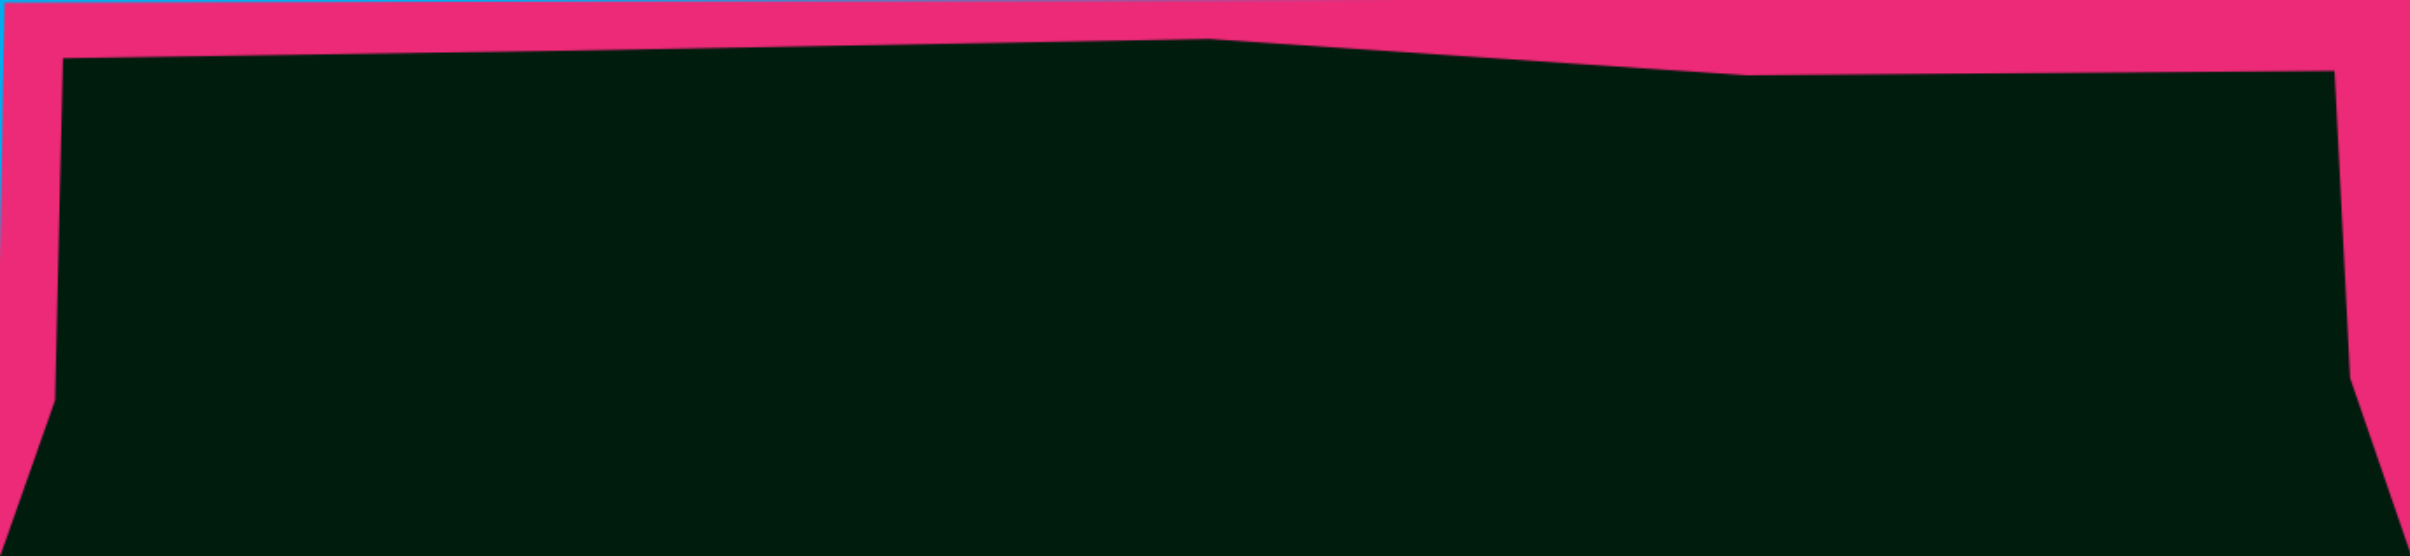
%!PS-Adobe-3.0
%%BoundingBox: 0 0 2410 556
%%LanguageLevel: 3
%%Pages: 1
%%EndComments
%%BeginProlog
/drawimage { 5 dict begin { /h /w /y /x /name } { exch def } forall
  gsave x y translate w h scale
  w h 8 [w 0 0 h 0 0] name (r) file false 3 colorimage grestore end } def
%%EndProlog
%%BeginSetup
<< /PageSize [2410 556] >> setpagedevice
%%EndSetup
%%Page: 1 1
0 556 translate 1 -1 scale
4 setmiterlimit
1 setgray
0 0 2410 556 rectfill
(images/1.raw) 0 0 2410 556 drawimage
showpage
%%EOF
